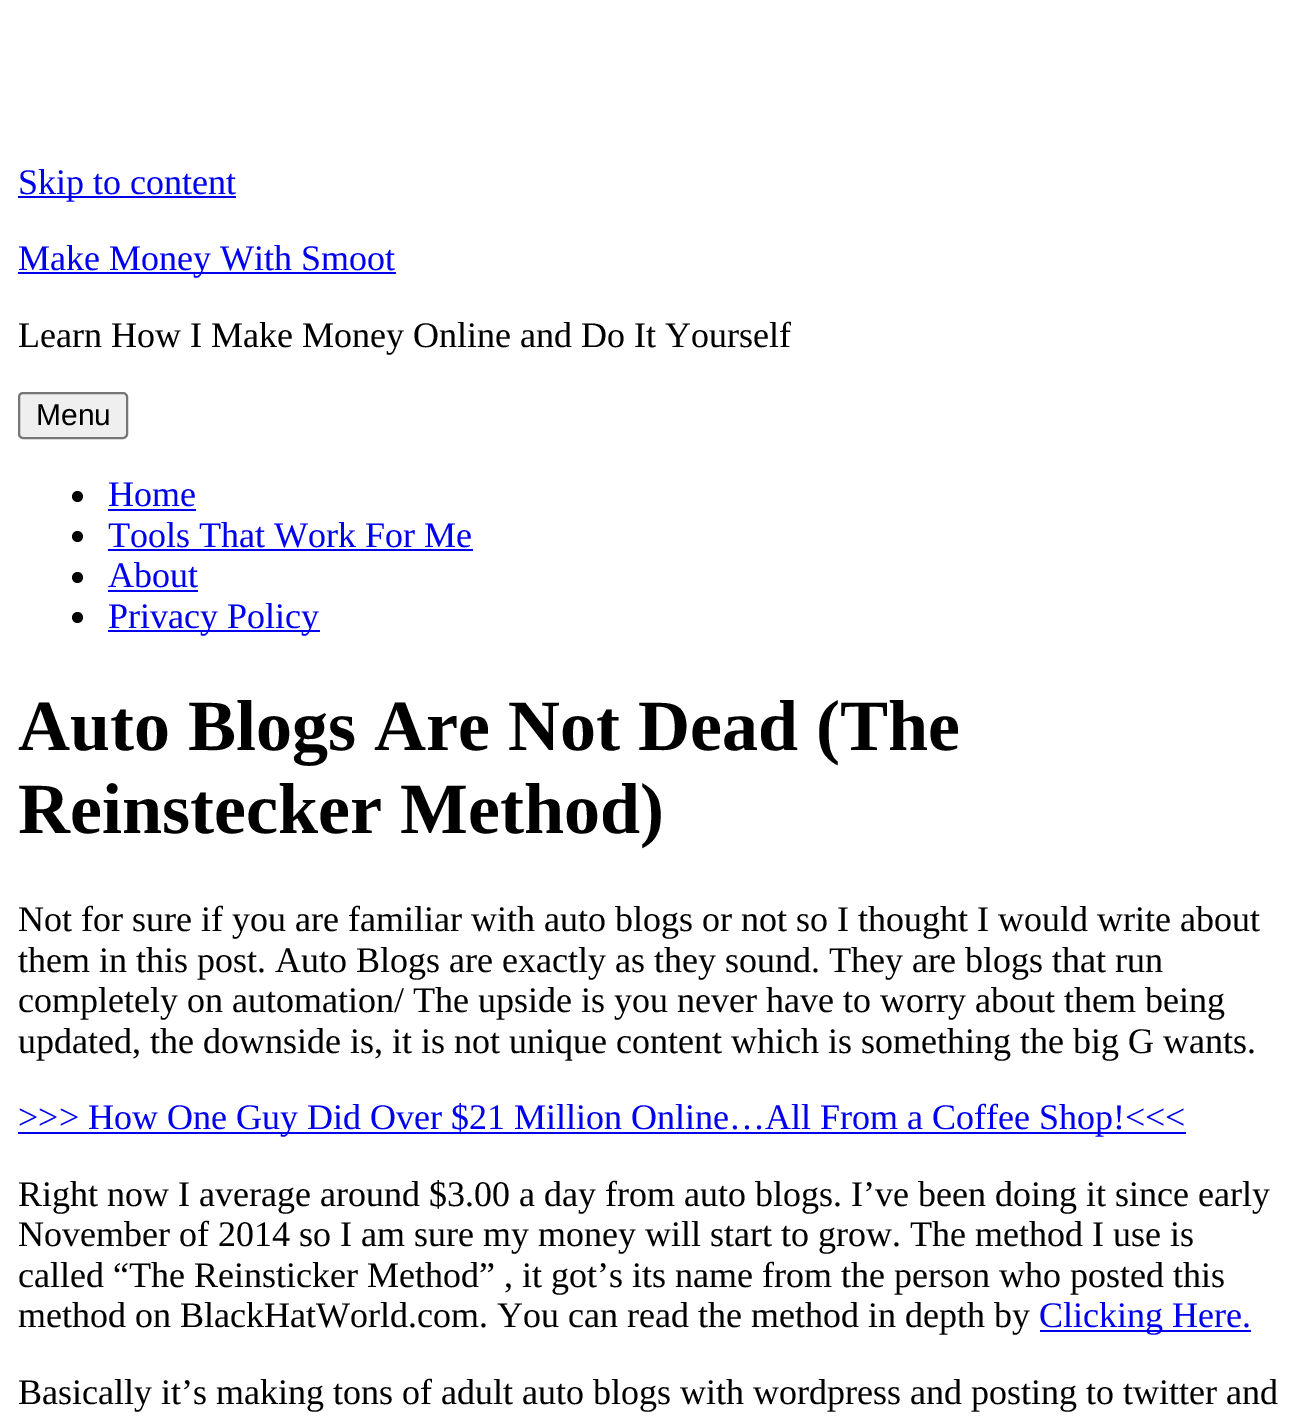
%!PS-Adobe-3.0
%%BoundingBox: 0 0 1295 1424
%%LanguageLevel: 3
%%Pages: 1
%%EndComments
%%BeginProlog
/rrect { 5 dict begin { /r /h /w /y /x } { exch def } forall
  x r add y moveto x w add y 2 copy h add r arct x w add y h add x 1 index r arct
  x y h add x y r arct x y 2 copy exch w add exch r arct closepath end } def
%%EndProlog
%%BeginSetup
<< /PageSize [1295 1424] >> setpagedevice
%%EndSetup
%%Page: 1 1
0 1424 translate 1 -1 scale
4 setmiterlimit
1 setgray
0 0 1295 1424 rectfill
0 0 0.933 setrgbcolor
18 196 218 2 rectfill
18 272 378 2 rectfill
0.937 setgray
19 393 108 45 4 rrect gsave fill grestore
0.463 setgray
2 setlinewidth
stroke
0 setgray
newpath 77.5 496.5 5.5 0 360 arc closepath fill
0 0 0.933 setrgbcolor
108 509 88 2 rectfill
0 setgray
newpath 77.5 536.5 5.5 0 360 arc closepath fill
0 0 0.933 setrgbcolor
108 549 365 2 rectfill
0 setgray
newpath 77.5 577.5 5.5 0 360 arc closepath fill
0 0 0.933 setrgbcolor
108 590 90 2 rectfill
0 setgray
newpath 77.5 617.5 5.5 0 360 arc closepath fill
0 0 0.933 setrgbcolor
108 630 212 2 rectfill
18 1132 1168 2 rectfill
1040 1330 211 2 rectfill
/LiberationSerif-Regular [36 0 0 -36 0 0] selectfont
18 194 moveto (Skip to content) show
18 270 moveto (Make Money With Smoot) show
0 setgray
18 347 moveto (Learn How I Make Money Online and Do It Yourself) show
/LiberationSans-Regular [30 0 0 -30 0 0] selectfont
36 425 moveto (Menu) show
/LiberationSerif-Regular [36 0 0 -36 0 0] selectfont
0 0 0.933 setrgbcolor
108 506 moveto (Home) show
108 547 moveto (Tools That Work For Me) show
108 587 moveto (About) show
108 628 moveto (Privacy Policy) show
/LiberationSerif-Bold [72 0 0 -72 0 0] selectfont
0 setgray
18 750 moveto (Auto Blogs Are Not Dead \(The) show
18 833 moveto (Reinstecker Method\)) show
/LiberationSerif-Regular [36 0 0 -36 0 0] selectfont
18 931 moveto (Not for sure if you are familiar with auto blogs or not so I thought I would write about) show
18 972 moveto (them in this post. Auto Blogs are exactly as they sound. They are blogs that run) show
18 1012 moveto (completely on automation/ The upside is you never have to worry about them being) show
18 1053 moveto (updated, the downside is, it is not unique content which is something the big G wants.) show
0 0 0.933 setrgbcolor
18 1129 moveto (>>> How One Guy Did Over $21 Million Online…All From a Coffee Shop!<<<) show
0 setgray
18 1206 moveto (Right now I average around $3.00 a day from auto blogs. I’ve been doing it since early) show
18 1246 moveto (November of 2014 so I am sure my money will start to grow. The method I use is) show
18 1287 moveto (called “The Reinsticker Method” , it got’s its name from the person who posted this) show
18 1327 moveto (method on BlackHatWorld.com. You can read the method in depth by) show
0 0 0.933 setrgbcolor
1039 1327 moveto (Clicking Here.) show
0 setgray
18 1404 moveto (Basically it’s making tons of adult auto blogs with wordpress and posting to twitter and) show
showpage
%%EOF
